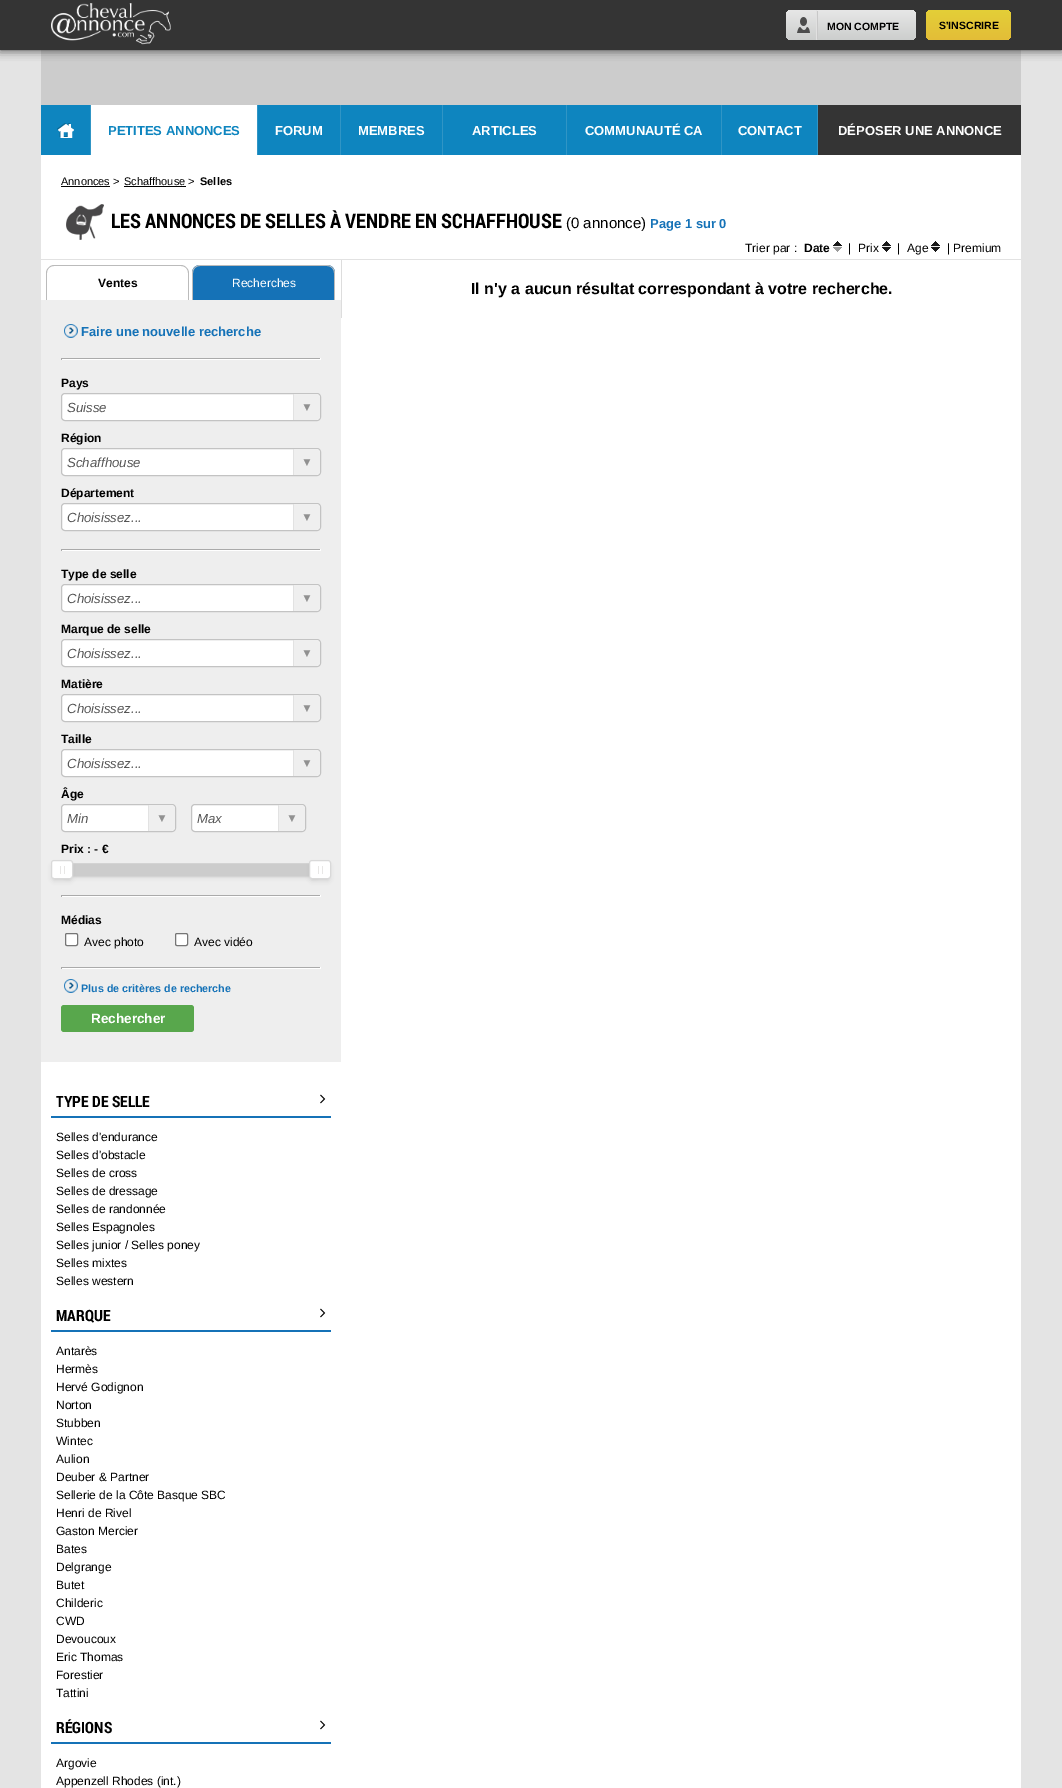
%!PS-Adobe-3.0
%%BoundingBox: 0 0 1062 1788
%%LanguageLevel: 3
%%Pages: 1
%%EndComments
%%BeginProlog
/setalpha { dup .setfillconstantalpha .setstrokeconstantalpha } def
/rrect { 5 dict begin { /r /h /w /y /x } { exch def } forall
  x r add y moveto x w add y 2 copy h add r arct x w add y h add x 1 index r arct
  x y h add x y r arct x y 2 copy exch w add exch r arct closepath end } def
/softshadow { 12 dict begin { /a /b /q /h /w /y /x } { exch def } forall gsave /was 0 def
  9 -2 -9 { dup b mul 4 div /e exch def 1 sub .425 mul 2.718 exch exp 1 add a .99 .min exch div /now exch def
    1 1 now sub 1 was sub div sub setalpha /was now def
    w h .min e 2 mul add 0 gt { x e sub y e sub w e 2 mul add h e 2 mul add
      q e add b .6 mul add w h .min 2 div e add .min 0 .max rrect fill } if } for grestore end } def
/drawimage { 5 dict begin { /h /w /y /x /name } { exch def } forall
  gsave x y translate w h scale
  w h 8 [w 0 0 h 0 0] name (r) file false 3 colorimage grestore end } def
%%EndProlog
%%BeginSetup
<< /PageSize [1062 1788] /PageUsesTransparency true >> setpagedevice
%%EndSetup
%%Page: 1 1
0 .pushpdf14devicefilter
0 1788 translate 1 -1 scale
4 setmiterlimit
0.894 setgray
0 0 1062 1788 rectfill
0.8 setgray
41 50 980 55 rectfill
0.2 setgray
0 0 1062 50 0 5 1 softshadow
0.204 setgray
0 0 1062 50 rectfill
(images/1.raw) 51 3 120 42 drawimage
gsave 786 10 130 30 5 rrect clip newpath
<< /ShadingType 2 /ColorSpace /DeviceRGB /Coords [851 10 851 40] /Extend [true true] /Function << /FunctionType 2 /Domain [0 1] /C0 [0.906 0.906 0.906] /C1 [0.8 0.808 0.804] /N 1 >> >> shfill grestore
0.784 setgray
817 11 1 28 rectfill
(images/2.raw) 797 17 13 16 drawimage
0.882 setgray
816 10 1 30 rectfill
gsave 926 10 85 30 5 rrect clip newpath
<< /ShadingType 2 /ColorSpace /DeviceRGB /Coords [969 10 969 40] /Extend [true true] /Function << /FunctionType 2 /Domain [0 1] /C0 [0.894 0.812 0.22] /C1 [0.89 0.741 0.216] /N 1 >> >> shfill grestore
0.055 0.522 0.749 setrgbcolor
41 105 776 50 rectfill
0.188 0.584 0.773 setrgbcolor
90 105 1 50 rectfill
(images/3.raw) 57 123 17 15 drawimage
257 105 1 50 rectfill
1 setgray
91 105 166 50 rectfill
0.188 0.584 0.773 setrgbcolor
340 105 1 50 rectfill
442 105 1 50 rectfill
566 105 1 50 rectfill
721 105 1 50 rectfill
817 105 1 50 rectfill
0.204 setgray
818 105 203 50 rectfill
1 setgray
41 155 980 1633 rectfill
0.886 setgray
41 259 980 1 rectfill
0 setgray
61 186 49 1 rectfill
124 186 62 1 rectfill
(images/4.raw) 66 204 38 36 drawimage
(images/5.raw) 833 241 9 5 drawimage
(images/6.raw) 833 246 9 6 drawimage
(images/5.raw) 882 241 9 5 drawimage
(images/7.raw) 882 246 9 6 drawimage
(images/5.raw) 931 241 9 5 drawimage
(images/7.raw) 931 246 9 6 drawimage
0.733 setgray
newpath 54 265 moveto 181 265 lineto 185 265 189 269 189 273 curveto 189 300 lineto 46 300 lineto 46 273 lineto 46 269 50 265 54 265 curveto closepath 54 266 moveto 181 266 lineto 185 266 188 269 188 273 curveto 188 300 lineto 47 300 lineto 47 273 lineto 47 269 50 266 54 266 curveto closepath eofill
0.082 0.447 0.718 setrgbcolor
newpath 200 265 moveto 327 265 lineto 331.5 265 335 268.5 335 273 curveto 335 300 lineto 192 300 lineto 192 273 lineto 192 268.5 195.5 265 200 265 curveto closepath fill
0.733 setgray
newpath 200 265 moveto 327 265 lineto 331 265 335 269 335 273 curveto 335 300 lineto 192 300 lineto 192 273 lineto 192 269 196 265 200 265 curveto closepath 200 266 moveto 327 266 lineto 331 266 334 269 334 273 curveto 334 300 lineto 193 300 lineto 193 273 lineto 193 269 196 266 200 266 curveto closepath eofill
0.933 setgray
41 300 300 762 rectfill
(images/8.raw) 64 324 14 14 drawimage
0.667 setgray
61 358 260 1 rectfill
1 setgray
320 358 1 2 rectfill
61 359 260 1 rectfill
0.667 setgray
61 358 1 2 rectfill
1 setgray
61.5 393.5 259 27 3.5 rrect gsave fill grestore
0.765 setgray
stroke
0.937 setgray
newpath 293 394 moveto 316 394 lineto 318 394 320 396 320 398 curveto 320 416 lineto 320 418 318 420 316 420 curveto 293 420 lineto closepath fill
0.886 setgray
293 394 1 26 rectfill
1 setgray
61.5 448.5 259 27 3.5 rrect gsave fill grestore
0.765 setgray
stroke
0.937 setgray
newpath 293 449 moveto 316 449 lineto 318 449 320 451 320 453 curveto 320 471 lineto 320 473 318 475 316 475 curveto 293 475 lineto closepath fill
0.886 setgray
293 449 1 26 rectfill
1 setgray
61.5 503.5 259 27 3.5 rrect gsave fill grestore
0.765 setgray
stroke
0.937 setgray
newpath 293 504 moveto 316 504 lineto 318 504 320 506 320 508 curveto 320 526 lineto 320 528 318 530 316 530 curveto 293 530 lineto closepath fill
0.886 setgray
293 504 1 26 rectfill
0.667 setgray
61 549 260 1 rectfill
1 setgray
320 549 1 2 rectfill
61 550 260 1 rectfill
0.667 setgray
61 549 1 2 rectfill
1 setgray
61.5 584.5 259 27 3.5 rrect gsave fill grestore
0.765 setgray
stroke
0.937 setgray
newpath 293 585 moveto 316 585 lineto 318 585 320 587 320 589 curveto 320 607 lineto 320 609 318 611 316 611 curveto 293 611 lineto closepath fill
0.886 setgray
293 585 1 26 rectfill
1 setgray
61.5 639.5 259 27 3.5 rrect gsave fill grestore
0.765 setgray
stroke
0.937 setgray
newpath 293 640 moveto 316 640 lineto 318 640 320 642 320 644 curveto 320 662 lineto 320 664 318 666 316 666 curveto 293 666 lineto closepath fill
0.886 setgray
293 640 1 26 rectfill
1 setgray
61.5 694.5 259 27 3.5 rrect gsave fill grestore
0.765 setgray
stroke
0.937 setgray
newpath 293 695 moveto 316 695 lineto 318 695 320 697 320 699 curveto 320 717 lineto 320 719 318 721 316 721 curveto 293 721 lineto closepath fill
0.886 setgray
293 695 1 26 rectfill
1 setgray
61.5 749.5 259 27 3.5 rrect gsave fill grestore
0.765 setgray
stroke
0.937 setgray
newpath 293 750 moveto 316 750 lineto 318 750 320 752 320 754 curveto 320 772 lineto 320 774 318 776 316 776 curveto 293 776 lineto closepath fill
0.886 setgray
293 750 1 26 rectfill
1 setgray
61.5 804.5 114 27 3.5 rrect gsave fill grestore
0.765 setgray
stroke
0.937 setgray
newpath 148 805 moveto 171 805 lineto 173 805 175 807 175 809 curveto 175 827 lineto 175 829 173 831 171 831 curveto 148 831 lineto closepath fill
0.886 setgray
148 805 1 26 rectfill
1 setgray
191.5 804.5 114 27 3.5 rrect gsave fill grestore
0.765 setgray
stroke
0.937 setgray
newpath 278 805 moveto 301 805 lineto 303 805 305 807 305 809 curveto 305 827 lineto 305 829 303 831 301 831 curveto 278 831 lineto closepath fill
0.886 setgray
278 805 1 26 rectfill
0.733 setgray
66 871 250 4 0 3 1 softshadow
0.827 setgray
61.5 863.5 259 13 rectstroke
0.8 setgray
73 864 236 12 rectfill
0.733 setgray
54 866 16 13 0 3 1 softshadow
1 setgray
51.5 860.5 21 18 2.5 rrect gsave fill grestore
0.851 setgray
stroke
0.91 0.906 0.902 setrgbcolor
60 866 1 8 rectfill
64 866 1 8 rectfill
0.733 setgray
312 866 16 13 0 3 1 softshadow
1 setgray
309.5 860.5 21 18 2.5 rrect gsave fill grestore
0.851 setgray
stroke
0.91 0.906 0.902 setrgbcolor
318 866 1 8 rectfill
322 866 1 8 rectfill
0.667 setgray
61 895 260 1 rectfill
1 setgray
320 895 1 2 rectfill
61 896 260 1 rectfill
0.667 setgray
61 895 1 2 rectfill
1 setgray
65.5 933.5 12 12 1.5 rrect gsave fill grestore
0.463 setgray
stroke
1 setgray
175.5 933.5 12 12 1.5 rrect gsave fill grestore
0.463 setgray
stroke
0.667 setgray
61 967 260 1 rectfill
1 setgray
320 967 1 2 rectfill
61 968 260 1 rectfill
0.667 setgray
61 967 1 2 rectfill
(images/8.raw) 64 979 14 14 drawimage
0.345 0.655 0.298 setrgbcolor
61 1005 133 27 3 rrect fill
0.082 0.447 0.718 setrgbcolor
51 1116 280 2 rectfill
(images/9.raw) 320 1094 6 10 drawimage
51 1330 280 2 rectfill
(images/9.raw) 320 1308 6 10 drawimage
51 1742 280 2 rectfill
(images/9.raw) 320 1720 6 10 drawimage
0.867 setgray
341 260 1 58 rectfill
/LiberationSans-Bold [10.5 0 0 -10.5 0 0] selectfont
0 setgray
827 30 moveto (MON COMPTE) show
939 29 moveto (S'INSCRIRE) show
/LiberationSans-Bold [13 0 0 -13 0 0] selectfont
0.055 0.522 0.749 setrgbcolor
108 135 moveto (PETITES ANNONCES) show
1 setgray
275 135 moveto (FORUM) show
358 135 moveto (MEMBRES) show
472 135 moveto (ARTICLES) show
585 135 moveto (COMMUNAUTÉ CA) show
738 135 moveto (CONTACT) show
838 135 moveto (DÉPOSER UNE ANNONCE) show
/LiberationSans-Regular [11 0 0 -11 0 0] selectfont
0 setgray
61 185 moveto (Annonces >) show
124 185 moveto (Schaffhouse >) show
/LiberationSans-Bold [11 0 0 -11 0 0] selectfont
200 185 moveto (Selles) show
/RobotoCondensed-Bold [20 0 0 -20 0 0] selectfont
111 228 moveto (LES ANNONCES DE SELLES À VENDRE EN SCHAFFHOUSE) show
/LiberationSans-Regular [15 0 0 -15 0 0] selectfont
566 228 moveto (\(0 annonce\)) show
/LiberationSans-Bold [13 0 0 -13 0 0] selectfont
0.082 0.447 0.718 setrgbcolor
650 228 moveto (Page 1 sur 0) show
/LiberationSans-Regular [12 0 0 -12 0 0] selectfont
0 setgray
745 252 moveto (Trier par :) show
/LiberationSans-Bold [12 0 0 -12 0 0] selectfont
804 252 moveto (Date) show
/LiberationSans-Regular [12 0 0 -12 0 0] selectfont
848 252 moveto (|) show
858 252 moveto (Prix) show
897 252 moveto (|) show
907 252 moveto (Age) show
947 252 moveto (| Premium) show
/LiberationSans-Bold [12 0 0 -12 0 0] selectfont
98 287 moveto (Ventes) show
/LiberationSans-Regular [12 0 0 -12 0 0] selectfont
1 setgray
232 287 moveto (Recherches) show
/LiberationSans-Bold [13 0 0 -13 0 0] selectfont
0.082 0.447 0.718 setrgbcolor
81 336 moveto (Faire une nouvelle recherche) show
/LiberationSans-Bold [12 0 0 -12 0 0] selectfont
0 setgray
61 387 moveto (Pays) show
/LiberationSans-Italic [13.25 0 0 -13.25 0 0] selectfont
0.333 setgray
67 412 moveto (Suisse) show
/LiberationSans-Regular [12 0 0 -12 0 0] selectfont
0.569 setgray
301 411 moveto (▼) show
/LiberationSans-Bold [12 0 0 -12 0 0] selectfont
0 setgray
61 442 moveto (Région) show
/LiberationSans-Italic [13.25 0 0 -13.25 0 0] selectfont
0.333 setgray
67 467 moveto (Schaffhouse) show
/LiberationSans-Regular [12 0 0 -12 0 0] selectfont
0.569 setgray
301 466 moveto (▼) show
/LiberationSans-Bold [12 0 0 -12 0 0] selectfont
0 setgray
61 497 moveto (Département) show
/LiberationSans-Italic [13.25 0 0 -13.25 0 0] selectfont
0.333 setgray
67 522 moveto (Choisissez...) show
/LiberationSans-Regular [12 0 0 -12 0 0] selectfont
0.569 setgray
301 521 moveto (▼) show
/LiberationSans-Bold [12 0 0 -12 0 0] selectfont
0 setgray
61 578 moveto (Type de selle) show
/LiberationSans-Italic [13.25 0 0 -13.25 0 0] selectfont
0.333 setgray
67 603 moveto (Choisissez...) show
/LiberationSans-Regular [12 0 0 -12 0 0] selectfont
0.569 setgray
301 602 moveto (▼) show
/LiberationSans-Bold [12 0 0 -12 0 0] selectfont
0 setgray
61 633 moveto (Marque de selle) show
/LiberationSans-Italic [13.25 0 0 -13.25 0 0] selectfont
0.333 setgray
67 658 moveto (Choisissez...) show
/LiberationSans-Regular [12 0 0 -12 0 0] selectfont
0.569 setgray
301 657 moveto (▼) show
/LiberationSans-Bold [12 0 0 -12 0 0] selectfont
0 setgray
61 688 moveto (Matière) show
/LiberationSans-Italic [13.25 0 0 -13.25 0 0] selectfont
0.333 setgray
67 713 moveto (Choisissez...) show
/LiberationSans-Regular [12 0 0 -12 0 0] selectfont
0.569 setgray
301 712 moveto (▼) show
/LiberationSans-Bold [12 0 0 -12 0 0] selectfont
0 setgray
61 743 moveto (Taille) show
/LiberationSans-Italic [13.25 0 0 -13.25 0 0] selectfont
0.333 setgray
67 768 moveto (Choisissez...) show
/LiberationSans-Regular [12 0 0 -12 0 0] selectfont
0.569 setgray
301 767 moveto (▼) show
/LiberationSans-Bold [12 0 0 -12 0 0] selectfont
0 setgray
61 798 moveto (Âge) show
/LiberationSans-Italic [13.25 0 0 -13.25 0 0] selectfont
0.333 setgray
67 823 moveto (Min) show
/LiberationSans-Regular [12 0 0 -12 0 0] selectfont
0.569 setgray
156 822 moveto (▼) show
/LiberationSans-Italic [13.25 0 0 -13.25 0 0] selectfont
0.333 setgray
197 823 moveto (Max) show
/LiberationSans-Regular [12 0 0 -12 0 0] selectfont
0.569 setgray
286 822 moveto (▼) show
/LiberationSans-Bold [12 0 0 -12 0 0] selectfont
0 setgray
61 853 moveto (Prix : - €) show
61 924 moveto (Médias) show
/LiberationSans-Regular [12 0 0 -12 0 0] selectfont
84 946 moveto (Avec photo) show
194 946 moveto (Avec vidéo) show
/LiberationSans-Bold [10.75 0 0 -10.75 0 0] selectfont
0.082 0.447 0.718 setrgbcolor
81 992 moveto (Plus de critères de recherche) show
/LiberationSans-Bold [13.5 0 0 -13.5 0 0] selectfont
1 setgray
91 1023 moveto (Rechercher) show
/RobotoCondensed-Bold [15.5 0 0 -15.5 0 0] selectfont
0 setgray
56 1107 moveto (TYPE DE SELLE) show
/LiberationSans-Regular [12 0 0 -12 0 0] selectfont
56 1141 moveto (Selles d'endurance) show
56 1159 moveto (Selles d'obstacle) show
56 1177 moveto (Selles de cross) show
56 1195 moveto (Selles de dressage) show
56 1213 moveto (Selles de randonnée) show
56 1231 moveto (Selles Espagnoles) show
56 1249 moveto (Selles junior / Selles poney) show
56 1267 moveto (Selles mixtes) show
56 1285 moveto (Selles western) show
/RobotoCondensed-Bold [15.5 0 0 -15.5 0 0] selectfont
56 1321 moveto (MARQUE) show
/LiberationSans-Regular [12 0 0 -12 0 0] selectfont
56 1355 moveto (Antarès) show
56 1373 moveto (Hermès) show
56 1391 moveto (Hervé Godignon) show
56 1409 moveto (Norton) show
56 1427 moveto (Stubben) show
56 1445 moveto (Wintec) show
56 1463 moveto (Aulion) show
56 1481 moveto (Deuber & Partner) show
56 1499 moveto (Sellerie de la Côte Basque SBC) show
56 1517 moveto (Henri de Rivel) show
56 1535 moveto (Gaston Mercier) show
56 1553 moveto (Bates) show
56 1571 moveto (Delgrange) show
56 1589 moveto (Butet) show
56 1607 moveto (Childeric) show
56 1625 moveto (CWD) show
56 1643 moveto (Devoucoux) show
56 1661 moveto (Eric Thomas) show
56 1679 moveto (Forestier) show
56 1697 moveto (Tattini) show
/RobotoCondensed-Bold [15.5 0 0 -15.5 0 0] selectfont
56 1733 moveto (RÉGIONS) show
/LiberationSans-Regular [12 0 0 -12 0 0] selectfont
56 1767 moveto (Argovie) show
56 1785 moveto (Appenzell Rhodes \(int.\)) show
/LiberationSans-Bold [16 0 0 -16 0 0] selectfont
471 294 moveto (Il n'y a aucun résultat correspondant à votre recherche.) show
.poppdf14devicefilter showpage
%%EOF
